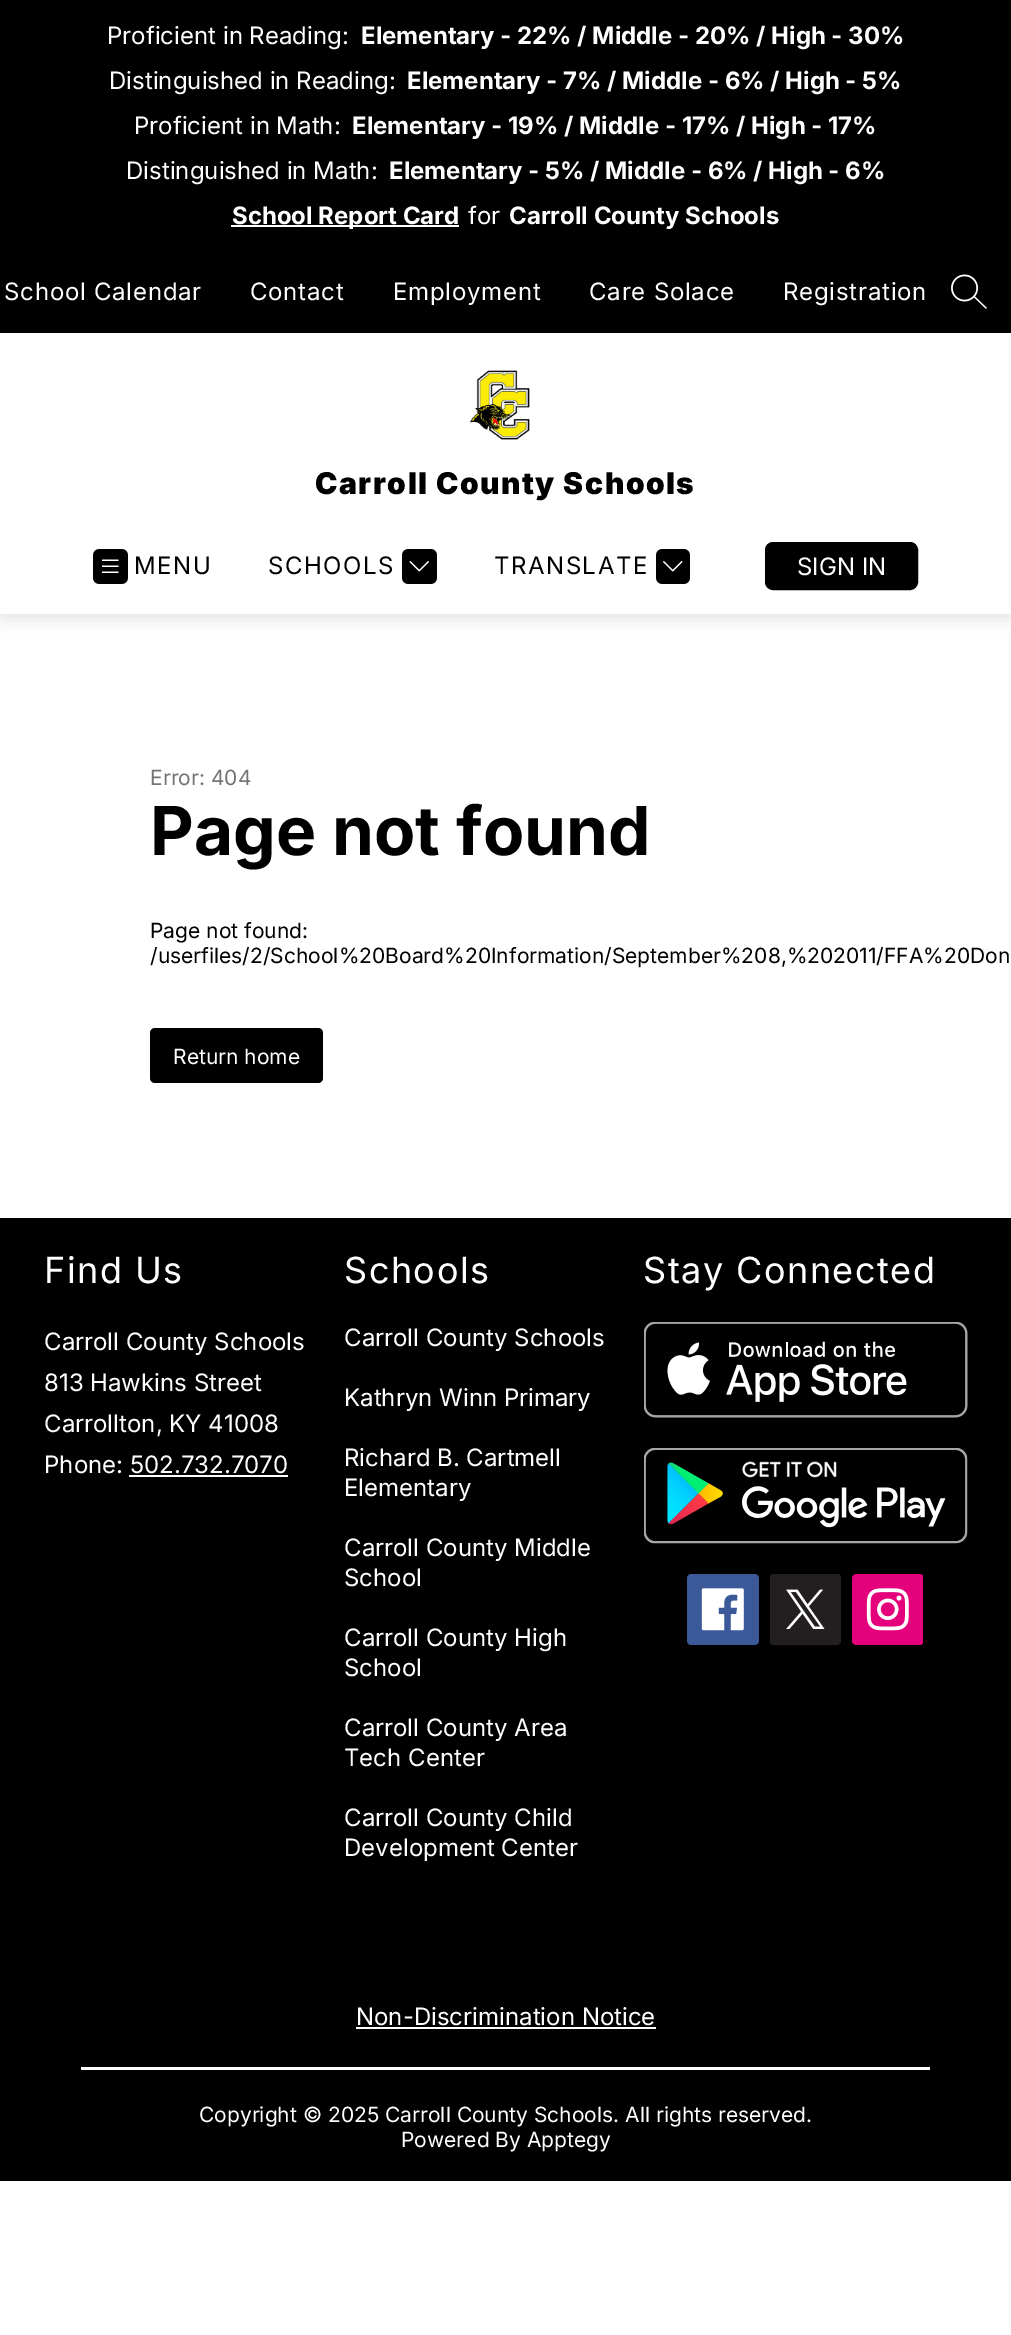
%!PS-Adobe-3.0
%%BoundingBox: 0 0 1011 2335
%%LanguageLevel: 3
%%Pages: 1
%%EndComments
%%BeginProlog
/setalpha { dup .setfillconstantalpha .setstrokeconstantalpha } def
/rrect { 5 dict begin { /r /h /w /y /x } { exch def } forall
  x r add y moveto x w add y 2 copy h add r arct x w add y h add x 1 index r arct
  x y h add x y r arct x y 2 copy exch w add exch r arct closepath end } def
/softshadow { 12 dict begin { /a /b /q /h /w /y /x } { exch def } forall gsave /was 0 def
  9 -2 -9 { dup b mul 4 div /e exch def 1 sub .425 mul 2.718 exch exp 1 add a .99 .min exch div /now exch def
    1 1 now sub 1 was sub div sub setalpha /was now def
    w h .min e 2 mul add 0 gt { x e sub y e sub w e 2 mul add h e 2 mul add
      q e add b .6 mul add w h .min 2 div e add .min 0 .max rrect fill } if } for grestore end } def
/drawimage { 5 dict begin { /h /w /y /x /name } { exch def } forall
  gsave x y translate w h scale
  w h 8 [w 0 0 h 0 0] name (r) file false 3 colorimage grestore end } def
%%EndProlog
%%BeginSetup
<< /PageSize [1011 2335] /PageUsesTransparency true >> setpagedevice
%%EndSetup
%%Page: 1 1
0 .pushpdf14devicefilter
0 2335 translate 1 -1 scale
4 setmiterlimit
1 setgray
0 0 1011 2335 rectfill
0 setgray
0 0 1011 249 rectfill
1 setgray
231 225 228 2 rectfill
0 setgray
0 255 1011 365 0 7.5 0.1 softshadow
1 setgray
0 333 1011 281 rectfill
0 setgray
0 249 1011 84 rectfill
(images/1.raw) 951 274 36 35 drawimage
(images/2.raw) 469 370 61 70 drawimage
(images/3.raw) 93 549 35 35 drawimage
(images/4.raw) 402 549 35 35 drawimage
(images/5.raw) 656 549 34 35 drawimage
766 543 151 46 7 rrect gsave fill grestore
2 setlinewidth
stroke
150 1028 173 55 5 rrect fill
0 1218 1011 963 rectfill
1 setgray
129 1475 159 2 rectfill
(images/6.raw) 644 1322 324 96 drawimage
(images/7.raw) 644 1448 324 96 drawimage
(images/8.raw) 687 1574 72 71 drawimage
(images/9.raw) 770 1574 72 72 drawimage
(images/10.raw) 852 1574 71 71 drawimage
356 2027 300 2 rectfill
81 2067 849 3 rectfill
/Inter-Regular [24 0 0 -24 0 0] selectfont
107 44 moveto (Proficient in Reading:) show
/Inter-Bold [24 0 0 -24 0 0] selectfont
361 44 moveto (Elementary - 22% / Middle - 20% / High - 30%) show
/Inter-Regular [24 0 0 -24 0 0] selectfont
109 89 moveto (Distinguished in Reading:) show
/Inter-Bold [24 0 0 -24 0 0] selectfont
407 89 moveto (Elementary - 7% / Middle - 6% / High - 5%) show
/Inter-Regular [24 0 0 -24 0 0] selectfont
134 134 moveto (Proficient in Math:) show
/Inter-Bold [24 0 0 -24 0 0] selectfont
352 134 moveto (Elementary - 19% / Middle - 17% / High - 17%) show
/Inter-Regular [24 0 0 -24 0 0] selectfont
126 179 moveto (Distinguished in Math:) show
/Inter-Bold [24 0 0 -24 0 0] selectfont
389 179 moveto (Elementary - 5% / Middle - 6% / High - 6%) show
232 224 moveto (School Report Card) show
/Inter-Regular [24 0 0 -24 0 0] selectfont
468 224 moveto (for) show
/Inter-Bold [24 0 0 -24 0 0] selectfont
509 224 moveto (Carroll County Schools) show
/Inter-Regular [24 0 0 -24 0 0] selectfont
4 300 moveto 0.75 0 (School Calendar) ashow
250 300 moveto 0.75 0 (Contact) ashow
393 300 moveto 0.75 0 (Employment) ashow
589 300 moveto 0.75 0 (Care Solace) ashow
783 300 moveto 0.75 0 (Registration) ashow
/Inter-Black [30 0 0 -30 0 0] selectfont
0 setgray
315 494 moveto 1.5 0 (Carroll County Schools) ashow
/Inter-Regular [24 0 0 -24 0 0] selectfont
134 574 moveto 1.5 0 (MENU) ashow
268 574 moveto 1.5 0 (SCHOOLS) ashow
494 574 moveto 1.5 0 (TRANSLATE) ashow
1 setgray
797 575 moveto (SIGN IN) show
/Inter-Regular [21 0 0 -21 0 0] selectfont
0.455 setgray
150 785 moveto (Error: 404) show
/Inter-Bold [67.5 0 0 -67.5 0 0] selectfont
0 setgray
150 855 moveto (Page not found) show
/Inter-Regular [21 0 0 -21 0 0] selectfont
150 938 moveto (Page not found:) show
150 963 moveto (/userfiles/2/School%20Board%20Information/September%208,%202011/FFA%20Don) show
1 setgray
173 1064 moveto (Return home) show
/Inter-Regular [36 0 0 -36 0 0] selectfont
44 1283 moveto 1.5 0 (Find Us) ashow
/Inter-Regular [24 0 0 -24 0 0] selectfont
44 1350 moveto (Carroll County Schools) show
44 1391 moveto (813 Hawkins Street) show
44 1432 moveto (Carrollton, KY 41008) show
44 1473 moveto (Phone: 502.732.7070) show
/Inter-Regular [36 0 0 -36 0 0] selectfont
344 1283 moveto 1.5 0 (Schools) ashow
/Inter-Regular [24 0 0 -24 0 0] selectfont
344 1346 moveto (Carroll County Schools) show
344 1406 moveto (Kathryn Winn Primary) show
344 1466 moveto (Richard B. Cartmell) show
344 1496 moveto (Elementary) show
344 1556 moveto (Carroll County Middle) show
344 1586 moveto (School) show
344 1646 moveto (Carroll County High) show
344 1676 moveto (School) show
344 1736 moveto (Carroll County Area) show
344 1766 moveto (Tech Center) show
344 1826 moveto (Carroll County Child) show
344 1856 moveto (Development Center) show
/Inter-Regular [36 0 0 -36 0 0] selectfont
643 1283 moveto 1.5 0 (Stay Connected) ashow
/Inter-Regular [24 0 0 -24 0 0] selectfont
356 2025 moveto (Non-Discrimination Notice) show
/Inter-Regular [21 0 0 -21 0 0] selectfont
199 2122 moveto (Copyright © 2025 Carroll County Schools. All rights reserved.) show
401 2147 moveto (Powered By Apptegy) show
.poppdf14devicefilter showpage
%%EOF
